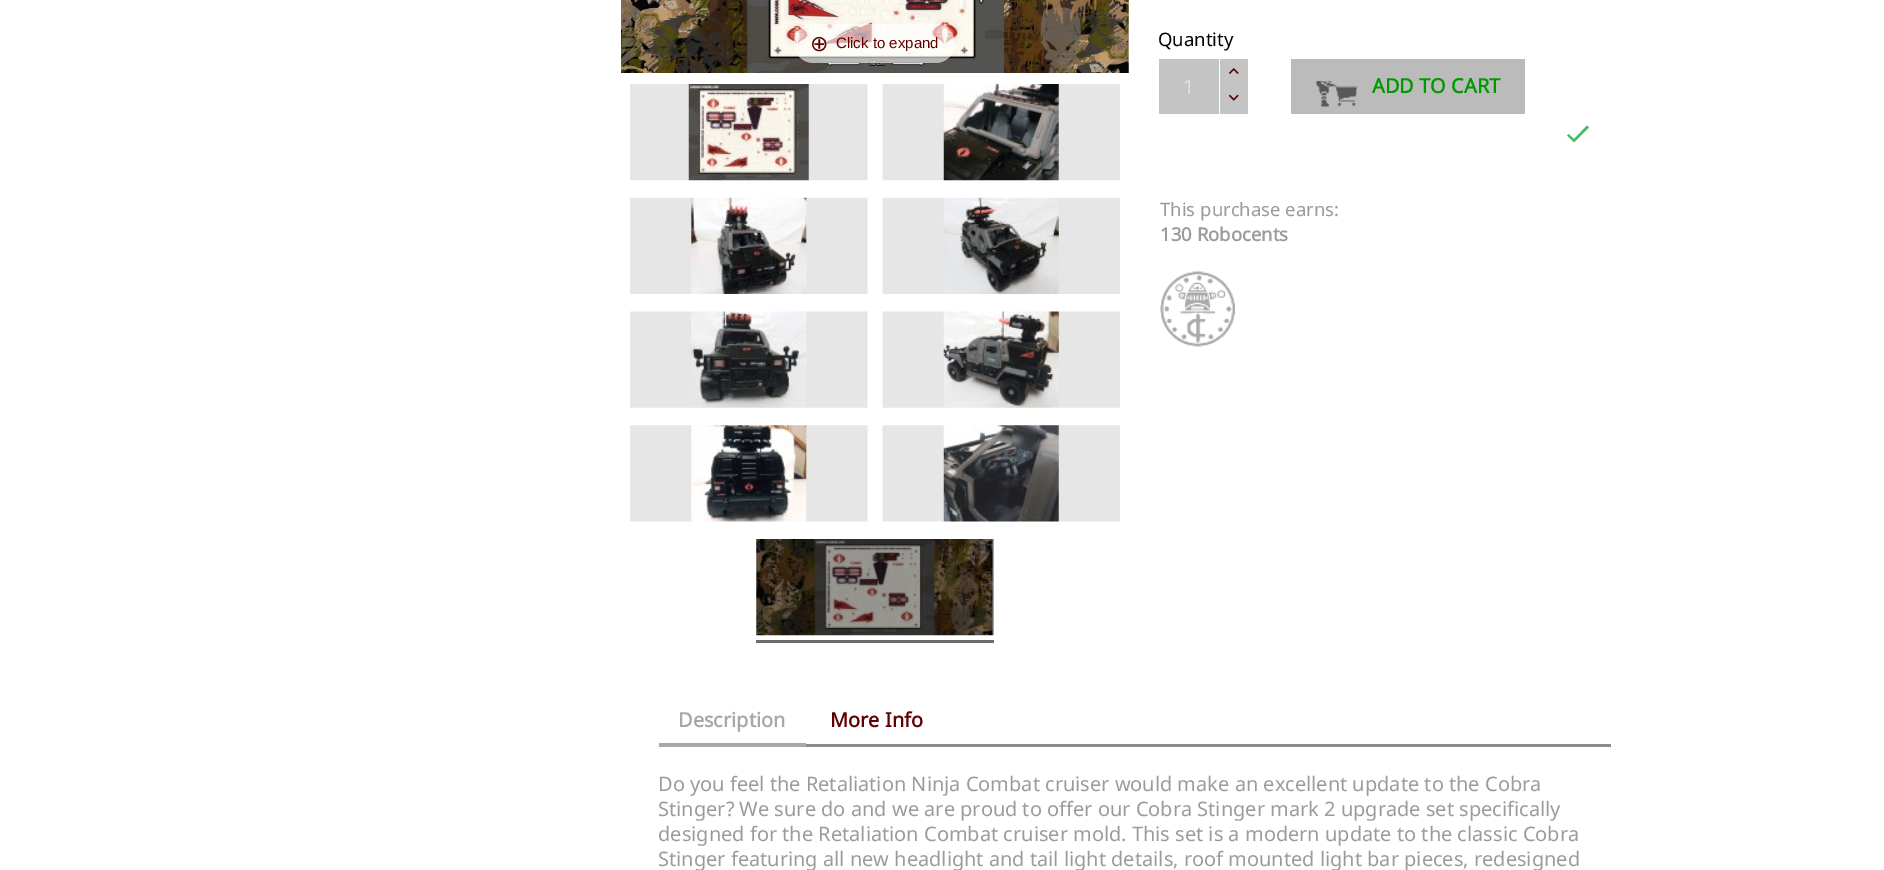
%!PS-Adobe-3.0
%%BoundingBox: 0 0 1884 870
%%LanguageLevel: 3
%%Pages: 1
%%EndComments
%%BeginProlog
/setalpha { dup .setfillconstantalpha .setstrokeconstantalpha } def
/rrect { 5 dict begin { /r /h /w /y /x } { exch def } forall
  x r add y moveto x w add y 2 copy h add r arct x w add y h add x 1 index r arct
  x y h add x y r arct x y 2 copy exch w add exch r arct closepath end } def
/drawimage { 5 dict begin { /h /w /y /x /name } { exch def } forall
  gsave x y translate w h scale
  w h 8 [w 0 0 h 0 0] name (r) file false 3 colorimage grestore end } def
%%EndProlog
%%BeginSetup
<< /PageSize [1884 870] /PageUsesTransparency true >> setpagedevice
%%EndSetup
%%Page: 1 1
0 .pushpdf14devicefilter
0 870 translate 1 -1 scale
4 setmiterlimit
1 setgray
0 0 1884 870 rectfill
(images/1.raw) 621 0 508 73 drawimage
0.6 setalpha
794 24 161 39 19.5 rrect fill
1 setalpha
(images/2.raw) 630 84 238 97 drawimage
(images/3.raw) 882 84 238 97 drawimage
(images/4.raw) 630 197 238 97 drawimage
(images/5.raw) 882 197 238 97 drawimage
(images/6.raw) 630 311 238 97 drawimage
(images/7.raw) 882 311 238 97 drawimage
(images/8.raw) 630 425 238 97 drawimage
(images/9.raw) 882 425 238 97 drawimage
(images/10.raw) 756 539 238 97 drawimage
0.424 setgray
756 640 238 3 rectfill
0.769 setgray
1159 59 60 55 rectfill
1220 59 28 55 rectfill
(images/11.raw) 1228 68 11 6 drawimage
(images/12.raw) 1228 94 11 7 drawimage
0.733 setgray
1291 59 234 55 rectfill
(images/13.raw) 1316 81 42 26 drawimage
0.298 0.733 0.424 setrgbcolor
newpath 1574 139 moveto 1587 125.5 lineto 1589 127.5 lineto 1574 142.5 lineto 1567 135.5 lineto 1568.5 134 lineto closepath fill
(images/14.raw) 1160 271 75 76 drawimage
0.549 setgray
806 744 805 3 rectfill
0.659 setgray
659 743 147 4 rectfill
/DejaVuSans-Regular [22 0 0 -22 0 0] selectfont
0.376 0 0 setrgbcolor
810 51 moveto (⊕) show
/LiberationSans-Regular [15 0 0 -15 0 0] selectfont
836 48 moveto (Click to expand) show
/NotoSans-Regular [18.5 0 0 -18.5 0 0] selectfont
0 setgray
1158 46 moveto (Quantity) show
/NotoSans-Regular [20 0 0 -20 0 0] selectfont
0.878 setgray
1183 94 moveto (1) show
/NotoSans-Bold [20 0 0 -20 0 0] selectfont
0 0.6 0 setrgbcolor
1372 93 moveto (ADD TO CART) show
/NotoSans-Regular [18.5 0 0 -18.5 0 0] selectfont
0.608 setgray
1160 216 moveto (This purchase earns:) show
/NotoSans-Bold [18.5 0 0 -18.5 0 0] selectfont
1160 241 moveto (130 Robocents) show
/NotoSans-Bold [20 0 0 -20 0 0] selectfont
0.659 setgray
678 727 moveto (Description) show
0.376 0 0 setrgbcolor
830 727 moveto (More Info) show
/NotoSans-Regular [20 0 0 -20 0 0] selectfont
0.608 setgray
658 791 moveto (Do you feel the Retaliation Ninja Combat cruiser would make an excellent update to the Cobra) show
658 816 moveto (Stinger? We sure do and we are proud to offer our Cobra Stinger mark 2 upgrade set specifically) show
658 841 moveto (designed for the Retaliation Combat cruiser mold. This set is a modern update to the classic Cobra) show
658 866 moveto (Stinger featuring all new headlight and tail light details, roof mounted light bar pieces, redesigned) show
.poppdf14devicefilter showpage
%%EOF
